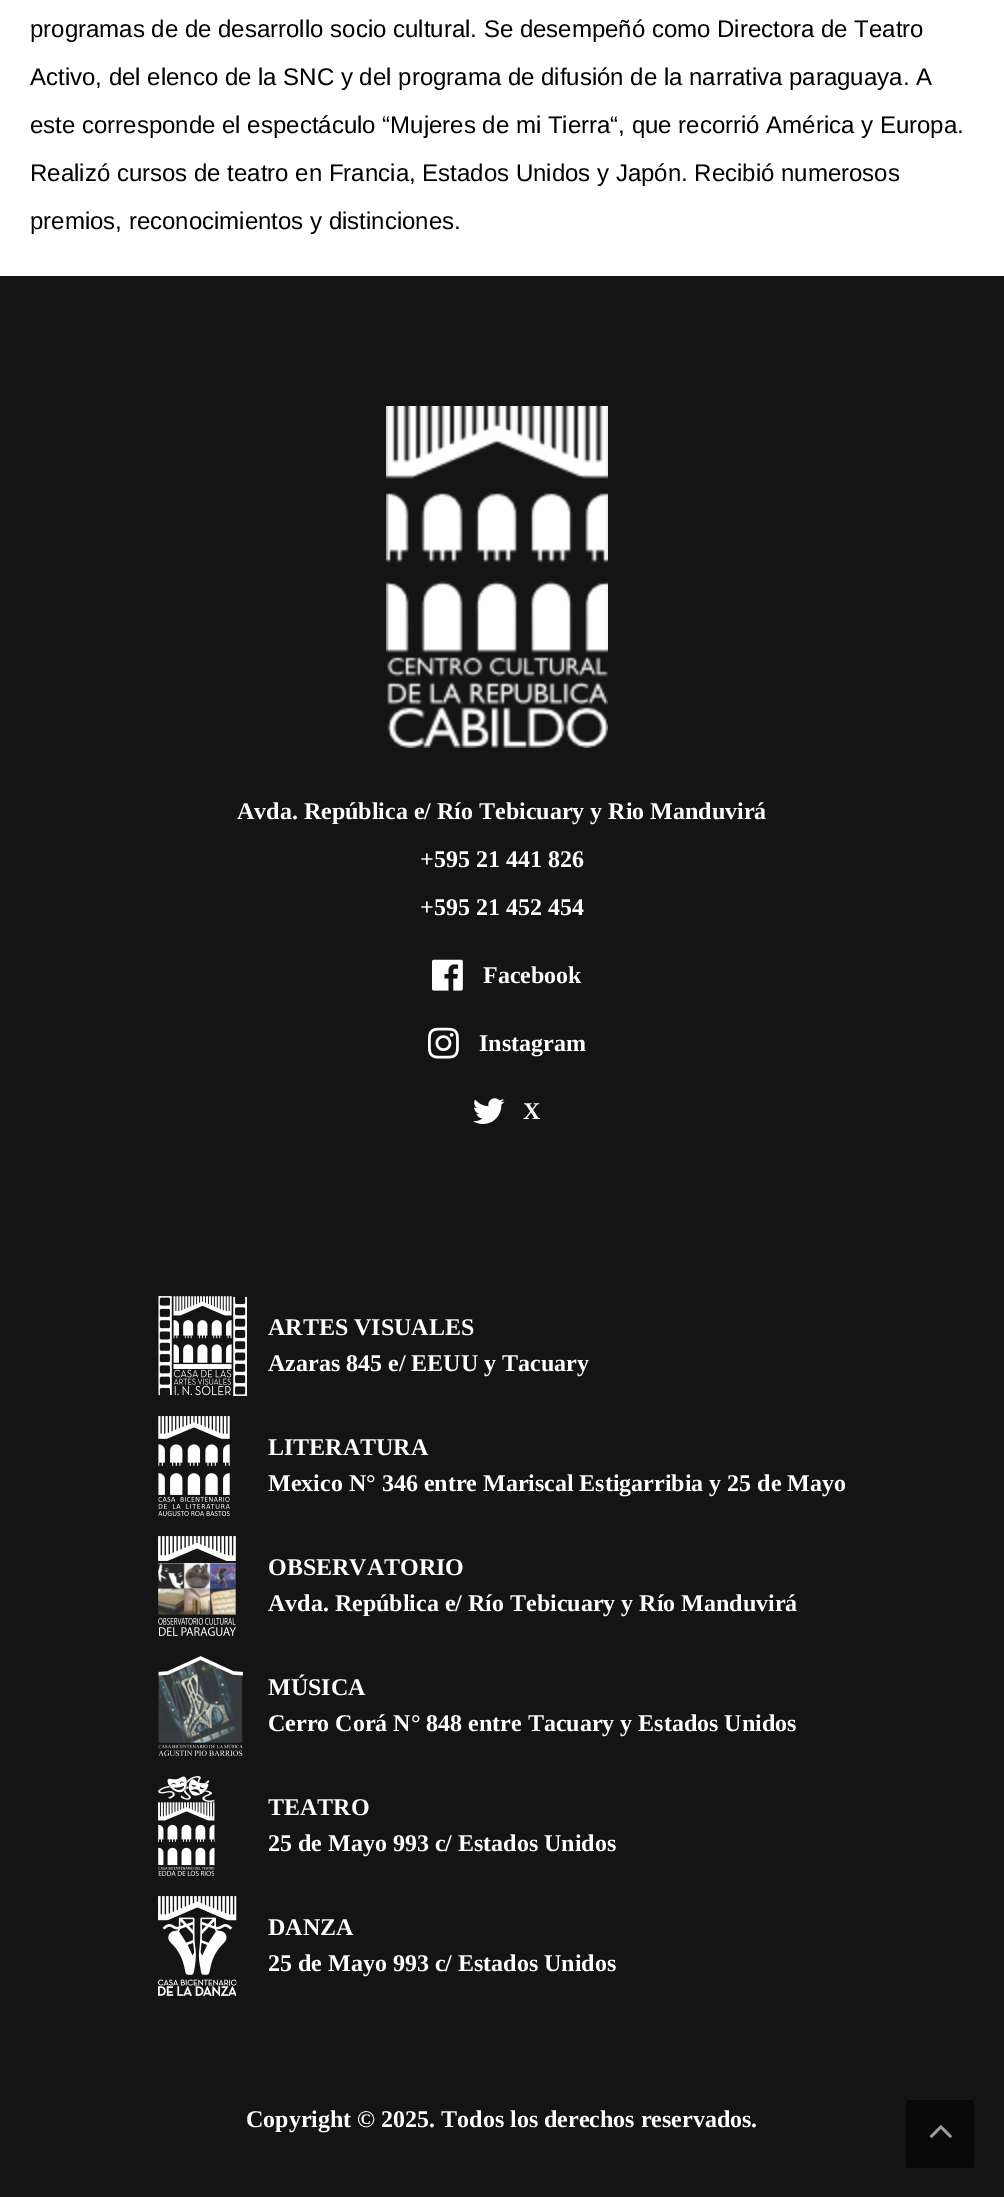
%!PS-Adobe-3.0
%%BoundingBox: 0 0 1004 2197
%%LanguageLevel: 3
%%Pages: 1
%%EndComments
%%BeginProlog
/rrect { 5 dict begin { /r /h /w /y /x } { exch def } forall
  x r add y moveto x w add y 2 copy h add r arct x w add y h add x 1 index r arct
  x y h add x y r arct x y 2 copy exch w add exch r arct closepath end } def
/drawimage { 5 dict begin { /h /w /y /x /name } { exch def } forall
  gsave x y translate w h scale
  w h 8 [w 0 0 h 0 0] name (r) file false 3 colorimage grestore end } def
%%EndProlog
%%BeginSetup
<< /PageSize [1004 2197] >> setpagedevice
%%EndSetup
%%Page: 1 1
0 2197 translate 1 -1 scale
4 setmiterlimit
1 setgray
0 0 1004 2197 rectfill
0.078 0.078 0.082 setrgbcolor
0 276 1004 1921 rectfill
(images/1.raw) 386 406 222 342 drawimage
(images/2.raw) 432 959 31 32 drawimage
(images/3.raw) 428 1027 31 32 drawimage
(images/4.raw) 473 1098 32 26 drawimage
(images/5.raw) 158 1296 89 100 drawimage
(images/6.raw) 158 1416 72 100 drawimage
(images/7.raw) 158 1536 78 100 drawimage
(images/8.raw) 158 1656 85 100 drawimage
(images/9.raw) 158 1776 57 100 drawimage
(images/10.raw) 158 1896 79 100 drawimage
0.031 setgray
906 2100 68 68 4 rrect fill
(images/11.raw) 929 2125 23 13 drawimage
/LiberationSans-Regular [24 0 0 -24 0 0] selectfont
0 setgray
30 37 moveto (programas de de desarrollo socio cultural. Se desempeñó como Directora de Teatro) show
30 85 moveto (Activo, del elenco de la SNC y del programa de difusión de la narrativa paraguaya. A) show
30 133 moveto (este corresponde el espectáculo “Mujeres de mi Tierra“, que recorrió América y Europa.) show
30 181 moveto (Realizó cursos de teatro en Francia, Estados Unidos y Japón. Recibió numerosos) show
30 229 moveto (premios, reconocimientos y distinciones.) show
/LiberationSerif-Bold [24 0 0 -24 0 0] selectfont
1 setgray
237 819 moveto (Avda. República e/ Río Tebicuary y Rio Manduvirá) show
420 867 moveto (+595 21 441 826) show
420 915 moveto (+595 21 452 454) show
483 983 moveto (Facebook) show
479 1051 moveto (Instagram) show
523 1119 moveto (X) show
268 1335 moveto (ARTES VISUALES) show
268 1371 moveto (Azaras 845 e/ EEUU y Tacuary) show
268 1455 moveto (LITERATURA) show
268 1491 moveto (Mexico N° 346 entre Mariscal Estigarribia y 25 de Mayo) show
268 1575 moveto (OBSERVATORIO) show
268 1611 moveto (Avda. República e/ Río Tebicuary y Río Manduvirá) show
268 1695 moveto (MÚSICA) show
268 1731 moveto (Cerro Corá N° 848 entre Tacuary y Estados Unidos) show
268 1815 moveto (TEATRO) show
268 1851 moveto (25 de Mayo 993 c/ Estados Unidos) show
268 1935 moveto (DANZA) show
268 1971 moveto (25 de Mayo 993 c/ Estados Unidos) show
246 2127 moveto (Copyright © 2025. Todos los derechos reservados.) show
showpage
%%EOF
